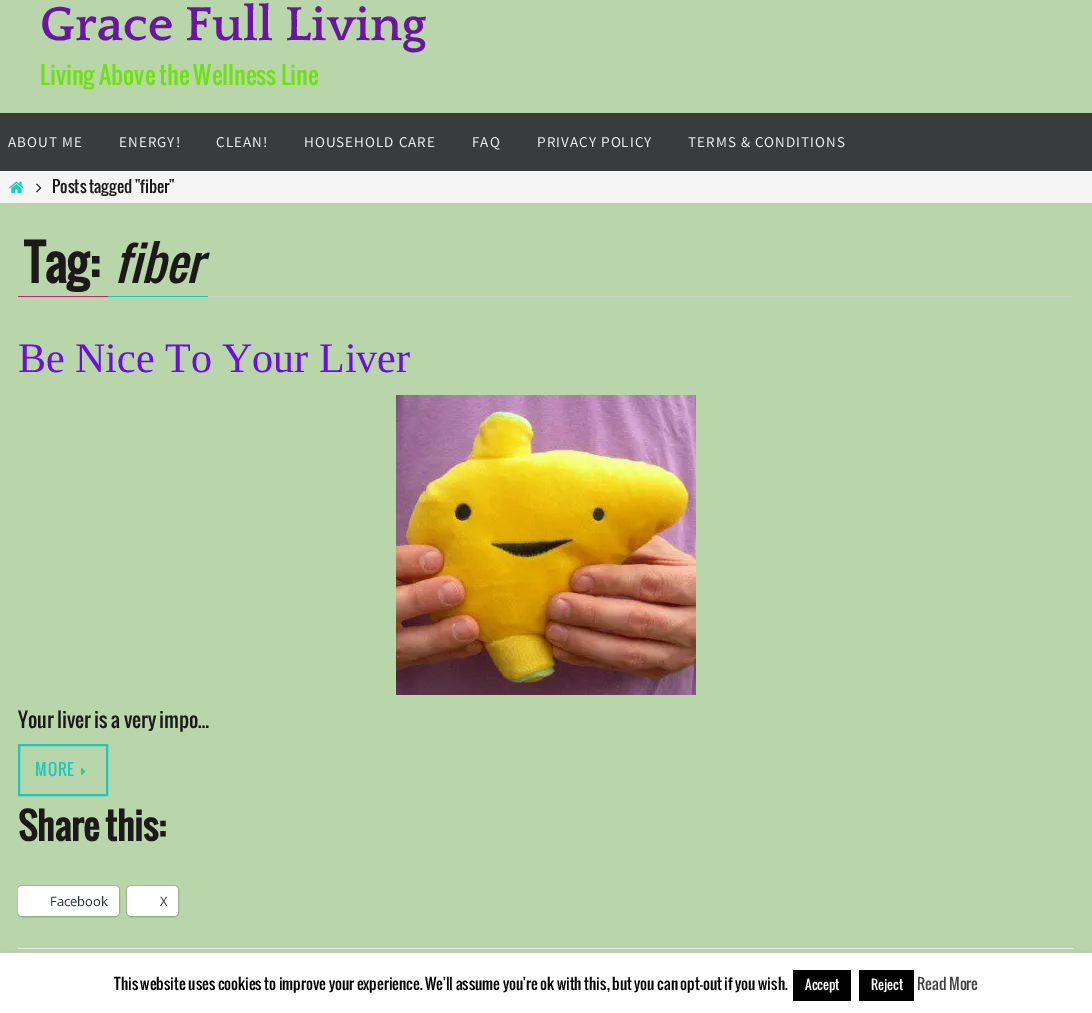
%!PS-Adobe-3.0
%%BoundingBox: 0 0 1092 1013
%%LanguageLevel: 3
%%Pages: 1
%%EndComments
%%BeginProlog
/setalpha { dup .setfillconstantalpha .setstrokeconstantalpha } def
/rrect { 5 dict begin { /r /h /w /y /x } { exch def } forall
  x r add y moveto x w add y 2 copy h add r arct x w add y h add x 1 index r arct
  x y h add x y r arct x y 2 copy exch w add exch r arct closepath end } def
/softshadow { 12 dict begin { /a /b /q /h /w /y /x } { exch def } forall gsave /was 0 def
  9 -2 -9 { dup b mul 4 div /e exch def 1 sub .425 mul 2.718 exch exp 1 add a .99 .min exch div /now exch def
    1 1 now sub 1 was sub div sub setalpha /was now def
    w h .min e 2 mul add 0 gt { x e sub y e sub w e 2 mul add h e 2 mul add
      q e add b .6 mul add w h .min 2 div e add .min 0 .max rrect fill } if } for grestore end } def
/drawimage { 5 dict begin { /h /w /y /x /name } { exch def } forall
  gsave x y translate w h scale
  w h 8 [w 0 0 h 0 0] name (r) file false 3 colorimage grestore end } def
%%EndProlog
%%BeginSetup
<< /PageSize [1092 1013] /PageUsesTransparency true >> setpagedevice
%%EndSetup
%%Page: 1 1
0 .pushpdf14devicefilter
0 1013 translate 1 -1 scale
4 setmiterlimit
0.725 0.839 0.671 setrgbcolor
0 0 1092 1013 rectfill
0.227 0.231 0.239 setrgbcolor
0 113 1092 58 rectfill
0.961 setgray
0 171 1092 32 rectfill
(images/1.raw) 9 181 15 13 drawimage
(images/2.raw) 36 183 6 10 drawimage
0.8 setgray
208 296 866 1 rectfill
0.796 0.125 0.439 setrgbcolor
18 296 90 1 rectfill
0.118 0.784 0.733 setrgbcolor
108 296 100 1 rectfill
(images/3.raw) 396 395 300 300 drawimage
2 setlinewidth
19 745 88 50 rectstroke
(images/4.raw) 81 767 5 9 drawimage
gsave
18 333 1056 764 rectclip
0.639 0.737 0.588 setrgbcolor
1 setlinewidth
17.5 885.5 102 31 4.5 rrect stroke
grestore
0 setgray
18 887 101 30 4 1 0.12 softshadow
1 setgray
18 886 101 30 4 rrect fill
0.639 0.737 0.588 setrgbcolor
1 setlinewidth
126.5 885.5 52 31 4.5 rrect stroke
0 setgray
127 887 51 30 4 1 0.12 softshadow
1 setgray
127 886 51 30 4 rrect fill
0.933 setgray
18 948 1056 1 rectfill
0.675 0.671 0.671 setrgbcolor
0 952 1092 60 0 5 0.3 softshadow
1 setgray
0 953 1092 60 rectfill
0 setgray
793 970 58 31 rectfill
859 970 55 31 rectfill
/Quattrocento-Bold [50 0 0 -50 0 0] selectfont
0.42 0.082 0.639 setrgbcolor
40 40 moveto (Grace Full Living) show
/Oswald-Regular [24 0 0 -24 0 0] selectfont
0.431 0.886 0.067 setrgbcolor
40 85 moveto (Living Above the Wellness Line) show
/SourceSansPro-Regular [15 0 0 -15 0 0] selectfont
0.933 setgray
8 147 moveto 1 0 (ABOUT ME) ashow
119 147 moveto 1 0 (ENERGY!) ashow
216 147 moveto 1 0 (CLEAN!) ashow
304 147 moveto 1 0 (HOUSEHOLD CARE) ashow
472 147 moveto 1 0 (FAQ) ashow
537 147 moveto 1 0 (PRIVACY POLICY) ashow
688 147 moveto 1 0 (TERMS & CONDITIONS) ashow
/Oswald-Regular [16 0 0 -16 0 0] selectfont
0.11 0.102 0.098 setrgbcolor
52 193 moveto (Posts tagged "fiber") show
/Oswald-Bold [48 0 0 -48 0 0] selectfont
24 283 moveto (Tag:) show
/Oswald-Italic [48 0 0 -48 0 0] selectfont
114 283 moveto (fiber) show
/LiberationSerif-Regular [42 0 0 -42 0 0] selectfont
0.424 0.051 0.898 setrgbcolor
18 372 moveto (Be Nice To Your Liver) show
/Oswald-Regular [20 0 0 -20 0 0] selectfont
0.11 0.102 0.098 setrgbcolor
18 728 moveto (Your liver is a very impo…) show
/Oswald-Regular [16 0 0 -16 0 0] selectfont
0.118 0.784 0.733 setrgbcolor
35 776 moveto 1 0 (MORE) ashow
/Oswald-Bold [36 0 0 -36 0 0] selectfont
0.11 0.102 0.098 setrgbcolor
18 841 moveto (Share this:) show
/OpenSans-Regular [13 0 0 -13 0 0] selectfont
0.173 0.2 0.22 setrgbcolor
50 906 moveto (Facebook) show
160 906 moveto (X) show
/Oswald-Regular [15 0 0 -15 0 0] selectfont
0 setgray
114 990 moveto (This website uses cookies to improve your experience. We'll assume you're ok with this, but you can opt-out if you wish.) show
/Oswald-Regular [13 0 0 -13 0 0] selectfont
1 setgray
805 990 moveto (Accept) show
871 990 moveto (Reject) show
/Oswald-Regular [15 0 0 -15 0 0] selectfont
0.267 setgray
917 990 moveto (Read More) show
.poppdf14devicefilter showpage
%%EOF
